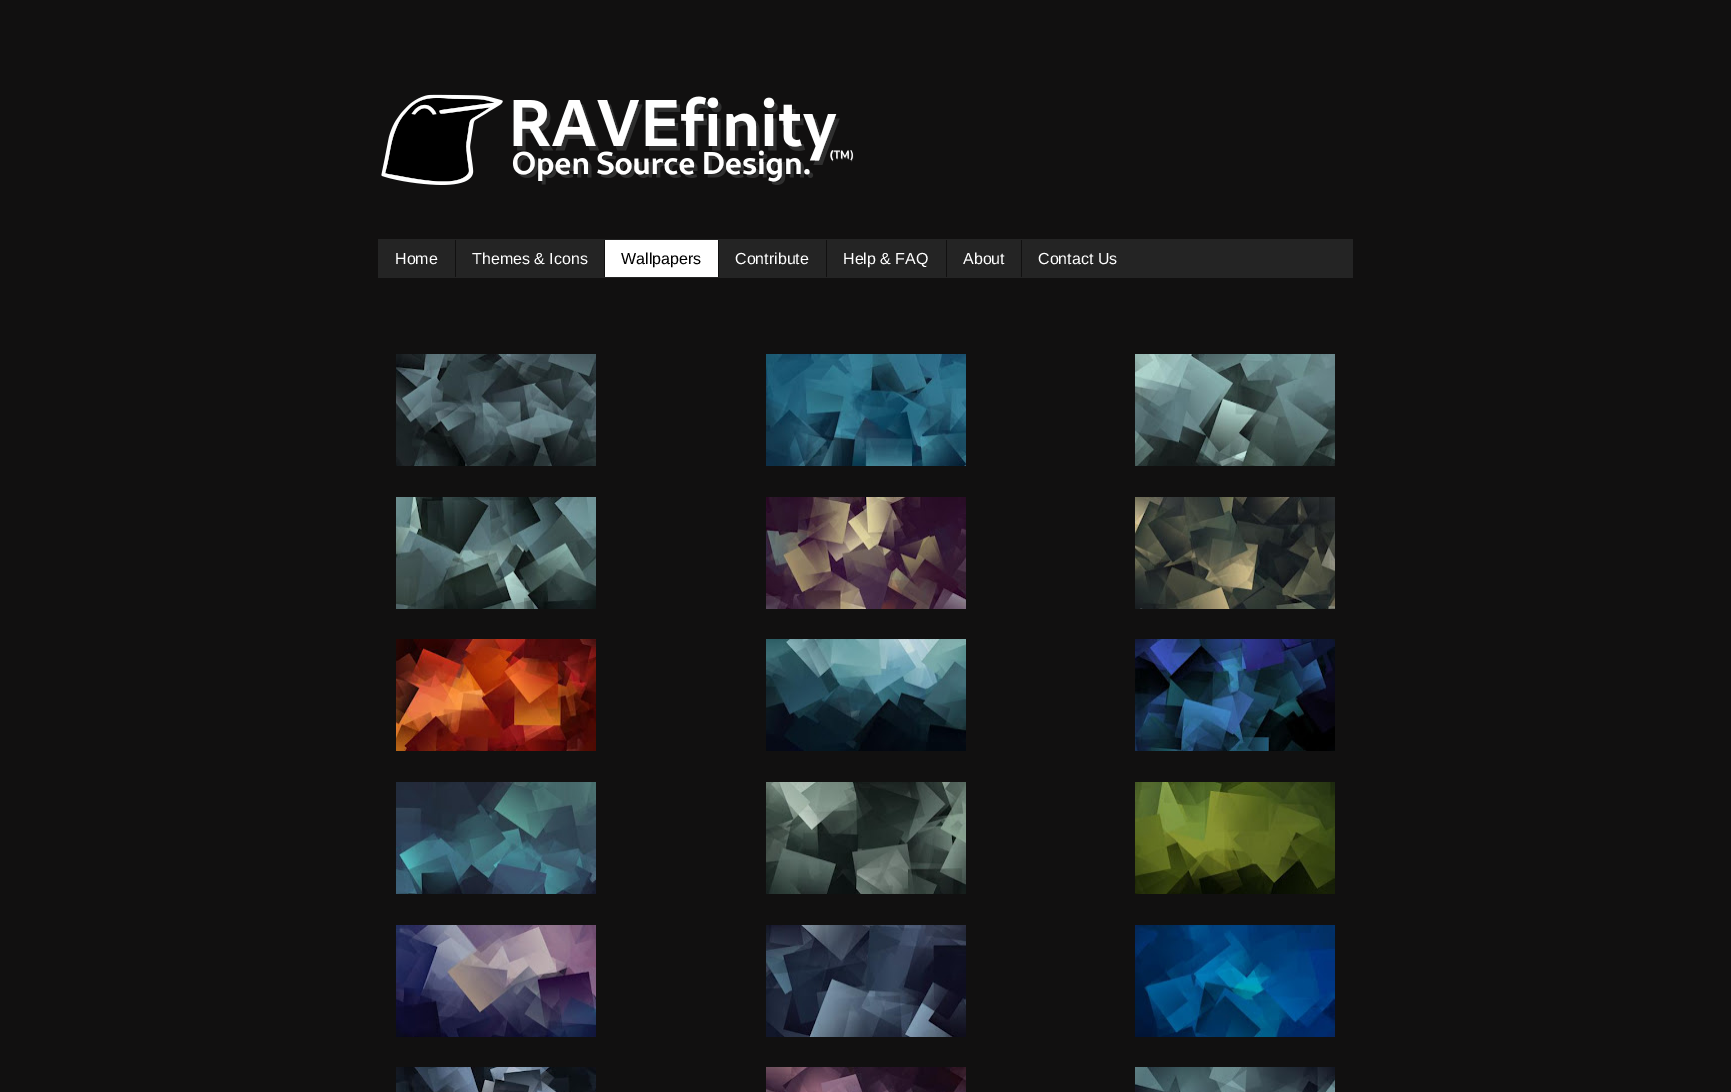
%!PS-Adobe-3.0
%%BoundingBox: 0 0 1731 1092
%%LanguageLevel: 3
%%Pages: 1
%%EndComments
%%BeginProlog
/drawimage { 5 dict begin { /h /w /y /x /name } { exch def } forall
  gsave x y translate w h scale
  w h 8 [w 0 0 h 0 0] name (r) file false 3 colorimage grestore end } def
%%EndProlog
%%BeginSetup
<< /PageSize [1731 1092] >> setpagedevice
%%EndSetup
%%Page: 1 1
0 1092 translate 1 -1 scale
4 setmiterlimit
0.067 0.063 0.063 setrgbcolor
0 0 1731 1092 rectfill
(images/1.raw) 381 94 473 91 drawimage
0.141 setgray
378 239 975 39 rectfill
0.067 0.063 0.063 setrgbcolor
455 240 1 37 rectfill
1 setgray
605 240 113 37 rectfill
0.067 0.063 0.063 setrgbcolor
604 240 1 37 rectfill
718 240 1 37 rectfill
826 240 1 37 rectfill
946 240 1 37 rectfill
1021 240 1 37 rectfill
(images/2.raw) 396 354 200 112 drawimage
(images/3.raw) 766 354 200 112 drawimage
(images/4.raw) 1135 354 200 112 drawimage
(images/5.raw) 396 497 200 112 drawimage
(images/6.raw) 766 497 200 112 drawimage
(images/7.raw) 1135 497 200 112 drawimage
(images/8.raw) 396 639 200 112 drawimage
(images/9.raw) 766 639 200 112 drawimage
(images/10.raw) 1135 639 200 112 drawimage
(images/11.raw) 396 782 200 112 drawimage
(images/12.raw) 766 782 200 112 drawimage
(images/13.raw) 1135 782 200 112 drawimage
(images/14.raw) 396 925 200 112 drawimage
(images/15.raw) 766 925 200 112 drawimage
(images/16.raw) 1135 925 200 112 drawimage
(images/17.raw) 396 1067 200 25 drawimage
(images/18.raw) 766 1067 200 25 drawimage
(images/19.raw) 1135 1067 200 25 drawimage
/LiberationSans-Regular [16 0 0 -16 0 0] selectfont
1 setgray
395 264 moveto (Home) show
472 264 moveto (Themes & Icons) show
0 setgray
621 264 moveto (Wallpapers) show
1 setgray
735 264 moveto (Contribute) show
843 264 moveto (Help & FAQ) show
963 264 moveto (About) show
1038 264 moveto (Contact Us) show
showpage
%%EOF
